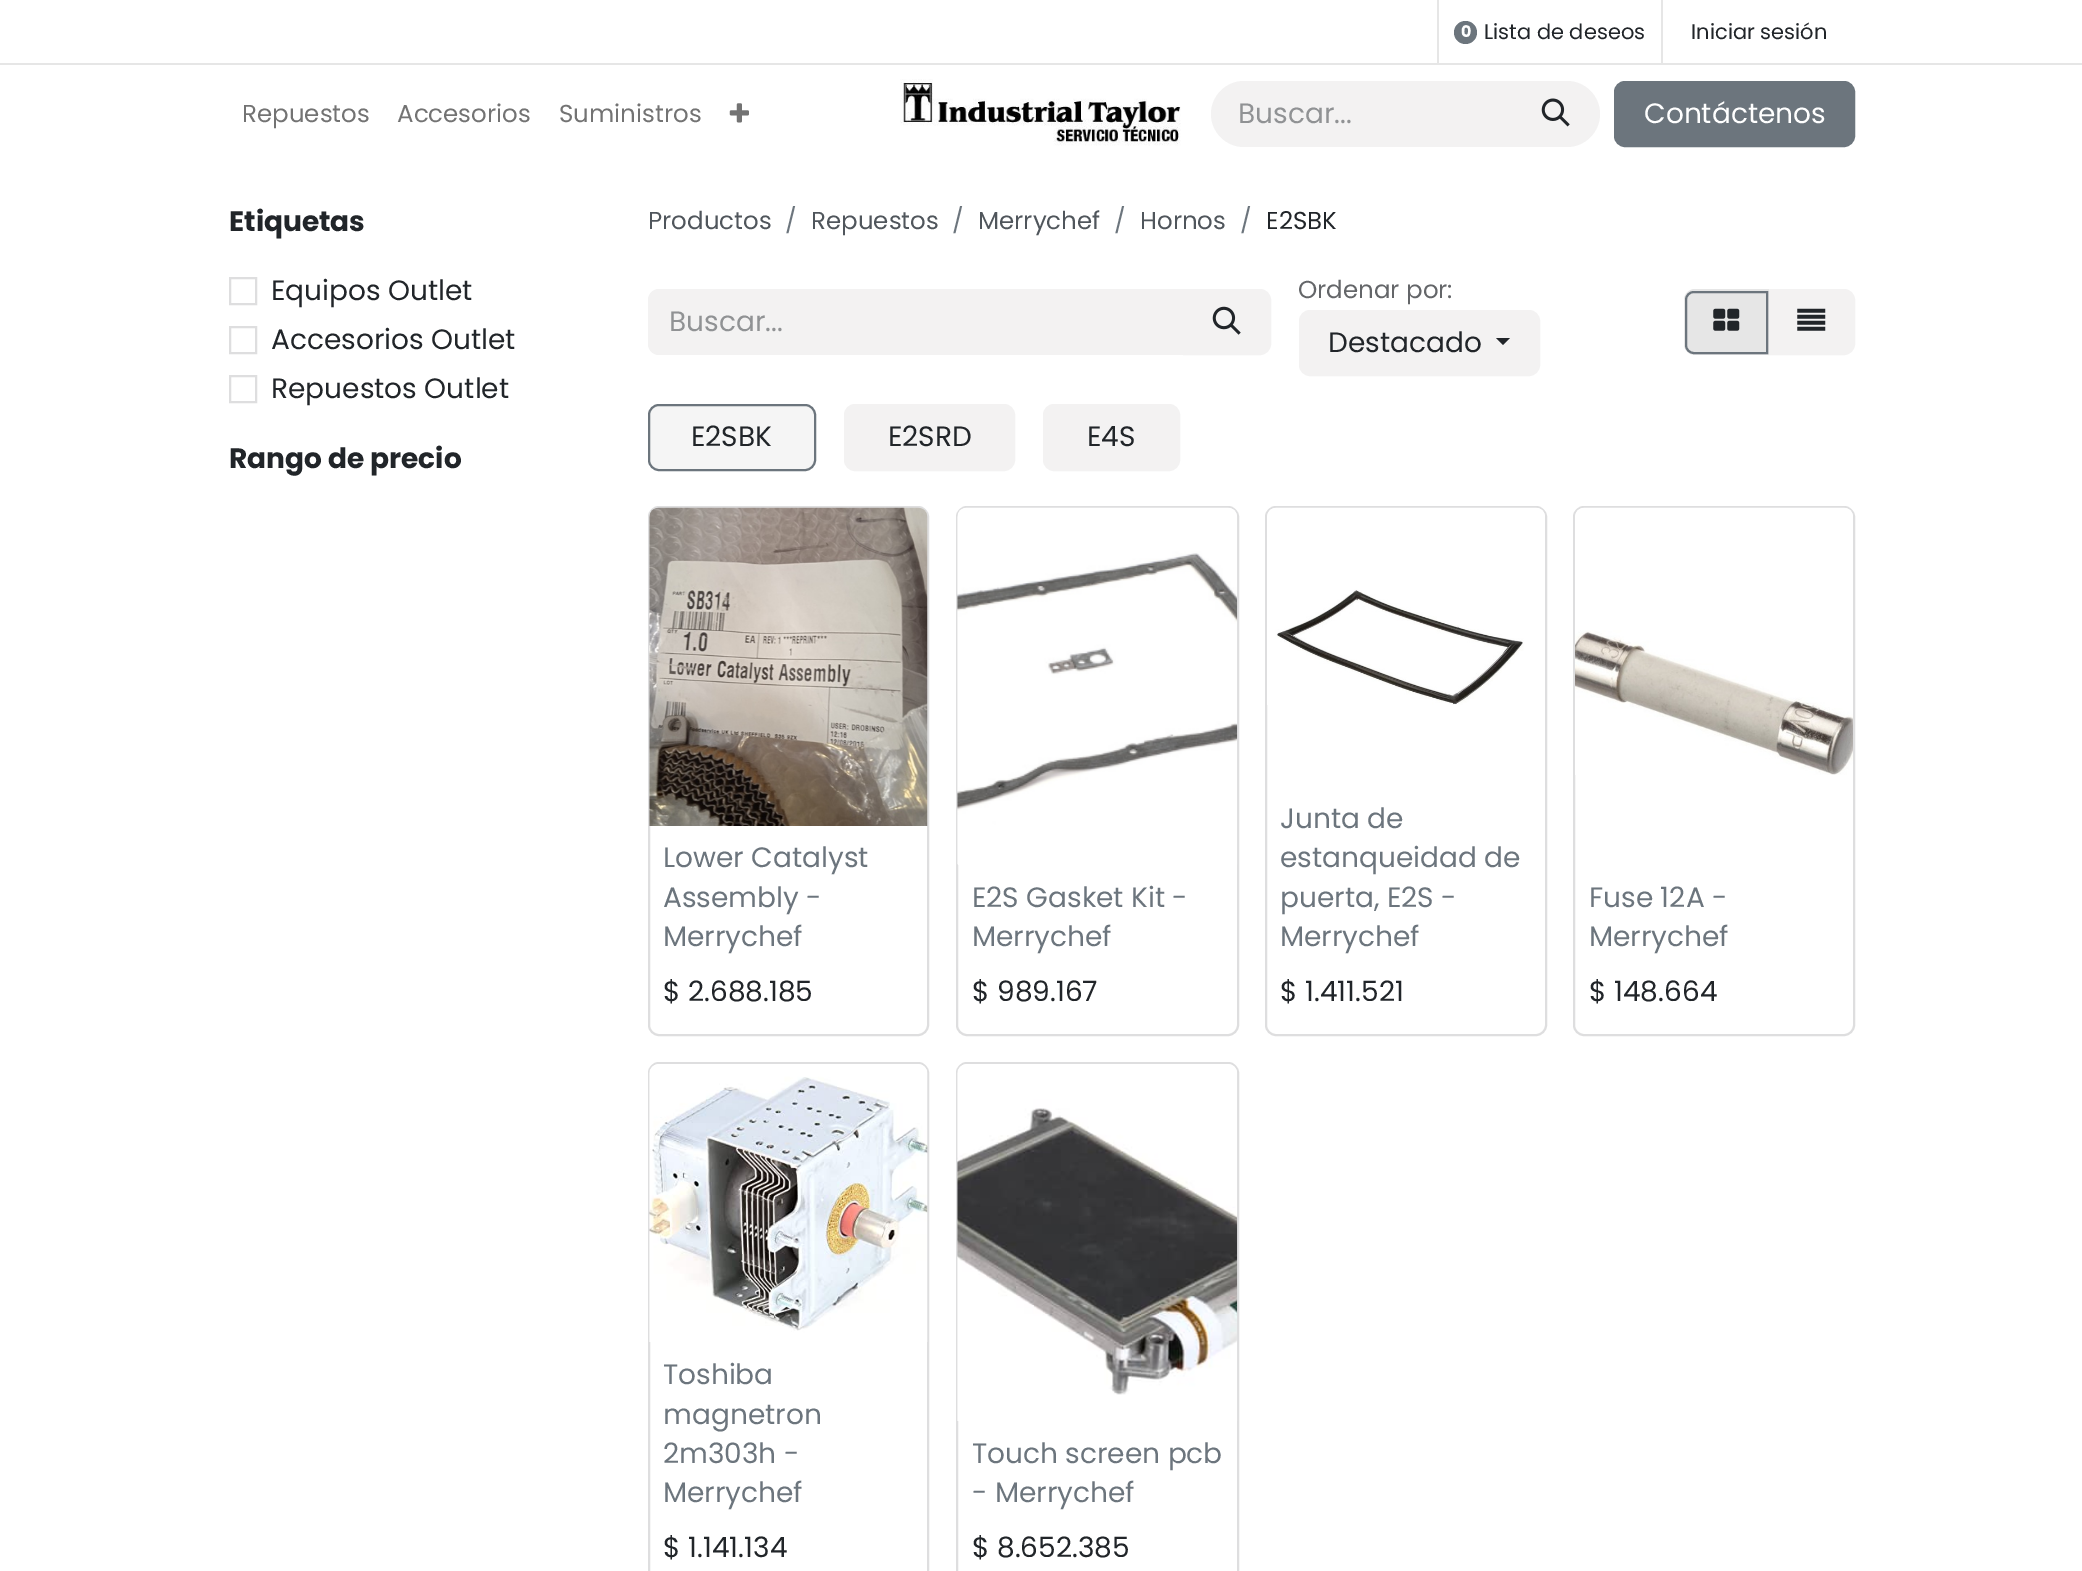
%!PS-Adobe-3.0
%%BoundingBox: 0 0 2082 1571
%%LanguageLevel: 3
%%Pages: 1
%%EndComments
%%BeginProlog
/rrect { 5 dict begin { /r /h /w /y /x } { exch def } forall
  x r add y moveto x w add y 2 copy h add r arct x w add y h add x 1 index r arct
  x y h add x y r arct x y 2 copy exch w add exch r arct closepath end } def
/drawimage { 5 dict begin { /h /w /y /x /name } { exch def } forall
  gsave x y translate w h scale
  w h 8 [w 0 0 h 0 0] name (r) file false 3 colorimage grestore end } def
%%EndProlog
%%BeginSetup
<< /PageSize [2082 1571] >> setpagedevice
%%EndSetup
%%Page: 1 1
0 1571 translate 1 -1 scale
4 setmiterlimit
1 setgray
0 0 2082 1571 rectfill
0.902 setgray
0 63 2082 2 rectfill
1437 0 2 63 rectfill
0.424 0.459 0.49 setrgbcolor
newpath 1465.5 32.5 11.5 0 360 arc closepath fill
0.902 setgray
1661 0 2 63 rectfill
(images/1.raw) 729 103 20 20 drawimage
(images/2.raw) 900 79 281 67 drawimage
0.953 0.949 0.949 setrgbcolor
newpath 1244 81 moveto 1514 81 lineto 1514 147 lineto 1244 147 lineto 1226 147 1211 132 1211 114 curveto 1211 96 1226 81 1244 81 curveto closepath fill
newpath 1512 81 moveto 1567 81 lineto 1585 81 1600 96 1600 114 curveto 1600 132 1585 147 1567 147 curveto 1512 147 lineto closepath fill
(images/3.raw) 1541 98 29 29 drawimage
0.424 0.459 0.49 setrgbcolor
1615 82 239 64 10 rrect gsave fill grestore
2 setlinewidth
stroke
0.871 0.871 0.875 setrgbcolor
230 278 26 26 rectstroke
230 327 26 26 rectstroke
230 376 26 26 rectstroke
0.953 0.949 0.949 setrgbcolor
newpath 659 289 moveto 1185 289 lineto 1185 355 lineto 659 355 lineto 653 355 648 350 648 344 curveto 648 300 lineto 648 294 653 289 659 289 curveto closepath fill
newpath 1184 290 moveto 1260 290 lineto 1265.5 290 1270 294.5 1270 300 curveto 1270 344 lineto 1270 349.5 1265.5 354 1260 354 curveto 1184 354 lineto closepath gsave fill grestore
stroke
(images/4.raw) 1212 306 29 29 drawimage
1300 311 239 64 10 rrect gsave fill grestore
stroke
0.129 0.145 0.161 setrgbcolor
newpath 1496 338 moveto 1510 338 lineto 1503 345 lineto closepath fill
0.953 0.949 0.949 setrgbcolor
newpath 1769 290 moveto 1844 290 lineto 1849.5 290 1854 294.5 1854 300 curveto 1854 344 lineto 1854 349.5 1849.5 354 1844 354 curveto 1769 354 lineto closepath gsave fill grestore
stroke
0.902 setgray
newpath 1695 289 moveto 1769 289 lineto 1769 355 lineto 1695 355 lineto 1689 355 1684 350 1684 344 curveto 1684 300 lineto 1684 294 1689 289 1695 289 curveto closepath fill
0.424 0.459 0.49 setrgbcolor
newpath 1694 292 moveto 1767 292 lineto 1767 353 lineto 1694 353 lineto 1689.5 353 1686 349.5 1686 345 curveto 1686 300 lineto 1686 295.5 1689.5 292 1694 292 curveto closepath stroke
(images/5.raw) 1713 308 27 23 drawimage
(images/6.raw) 1797 308 29 23 drawimage
0.961 setgray
649 405 166 65 10 rrect gsave fill grestore
0.424 0.459 0.49 setrgbcolor
stroke
0.953 0.949 0.949 setrgbcolor
845 405 169 65 10 rrect gsave fill grestore
stroke
1044 405 135 65 10 rrect gsave fill grestore
stroke
0.871 0.871 0.875 setrgbcolor
649 507 279 528 10 rrect stroke
(images/7.raw) 649 507 279 319 drawimage
957 507 281 528 10 rrect stroke
(images/8.raw) 957 507 281 358 drawimage
1266 507 280 528 10 rrect stroke
(images/9.raw) 1267 507 278 198 drawimage
1574 507 280 528 10 rrect stroke
(images/10.raw) 1575 507 278 268 drawimage
649 1063 279 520 10 rrect stroke
(images/11.raw) 649 1064 279 278 drawimage
957 1063 281 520 10 rrect stroke
(images/12.raw) 957 1064 281 357 drawimage
/Poppins-Bold [16 0 0 -16 0 0] selectfont
1 setgray
1461 37 moveto (0) show
/Poppins-Regular [21 0 0 -21 0 0] selectfont
0.129 0.145 0.161 setrgbcolor
1484 39 moveto (Lista de deseos) show
1691 39 moveto (Iniciar sesión) show
/Poppins-Regular [24.5 0 0 -24.5 0 0] selectfont
0.451 setgray
242 122 moveto (Repuestos) show
397 122 moveto (Accesorios) show
559 122 moveto (Suministros) show
/Poppins-Regular [28 0 0 -28 0 0] selectfont
0.565 0.573 0.58 setrgbcolor
1238 123 moveto (Buscar...) show
1 setgray
1644 123 moveto (Contáctenos) show
/Poppins-Bold [28 0 0 -28 0 0] selectfont
0.129 0.145 0.161 setrgbcolor
229 231 moveto (Etiquetas) show
/Poppins-Regular [28 0 0 -28 0 0] selectfont
271 300 moveto (Equipos Outlet) show
271 349 moveto (Accesorios Outlet) show
271 398 moveto (Repuestos Outlet) show
/Poppins-Bold [28 0 0 -28 0 0] selectfont
229 468 moveto (Rango de precio) show
/Poppins-Regular [24.5 0 0 -24.5 0 0] selectfont
0.314 0.337 0.361 setrgbcolor
648 229 moveto (Productos) show
0.424 0.459 0.49 setrgbcolor
785 229 moveto (/) show
0.314 0.337 0.361 setrgbcolor
811 229 moveto (Repuestos) show
0.424 0.459 0.49 setrgbcolor
952 229 moveto (/) show
0.314 0.337 0.361 setrgbcolor
978 229 moveto (Merrychef) show
0.424 0.459 0.49 setrgbcolor
1114 229 moveto (/) show
0.314 0.337 0.361 setrgbcolor
1140 229 moveto (Hornos) show
0.424 0.459 0.49 setrgbcolor
1240 229 moveto (/) show
0.129 0.145 0.161 setrgbcolor
1266 229 moveto (E2SBK) show
/Poppins-Regular [28 0 0 -28 0 0] selectfont
0.565 0.573 0.58 setrgbcolor
669 331 moveto (Buscar...) show
/Poppins-Regular [24.5 0 0 -24.5 0 0] selectfont
0.392 0.4 0.412 setrgbcolor
1298 298 moveto (Ordenar por:) show
/Poppins-Regular [28 0 0 -28 0 0] selectfont
0.129 0.145 0.161 setrgbcolor
1328 352 moveto (Destacado) show
691 446 moveto (E2SBK) show
888 446 moveto (E2SRD) show
1087 446 moveto (E4S) show
0.424 0.459 0.49 setrgbcolor
663 867 moveto (Lower Catalyst) show
663 907 moveto (Assembly -) show
663 946 moveto (Merrychef) show
0.129 0.145 0.161 setrgbcolor
663 1001 moveto ($ 2.688.185) show
0.424 0.459 0.49 setrgbcolor
972 907 moveto (E2S Gasket Kit -) show
972 946 moveto (Merrychef) show
0.129 0.145 0.161 setrgbcolor
972 1001 moveto ($ 989.167) show
0.424 0.459 0.49 setrgbcolor
1280 828 moveto (Junta de) show
1280 867 moveto (estanqueidad de) show
1280 907 moveto (puerta, E2S -) show
1280 946 moveto (Merrychef) show
0.129 0.145 0.161 setrgbcolor
1280 1001 moveto ($ 1.411.521) show
0.424 0.459 0.49 setrgbcolor
1589 907 moveto (Fuse 12A -) show
1589 946 moveto (Merrychef) show
0.129 0.145 0.161 setrgbcolor
1589 1001 moveto ($ 148.664) show
0.424 0.459 0.49 setrgbcolor
663 1384 moveto (Toshiba) show
663 1424 moveto (magnetron) show
663 1463 moveto (2m303h -) show
663 1502 moveto (Merrychef) show
0.129 0.145 0.161 setrgbcolor
663 1557 moveto ($ 1.141.134) show
0.424 0.459 0.49 setrgbcolor
972 1463 moveto (Touch screen pcb) show
972 1502 moveto (- Merrychef) show
0.129 0.145 0.161 setrgbcolor
972 1557 moveto ($ 8.652.385) show
showpage
%%EOF
